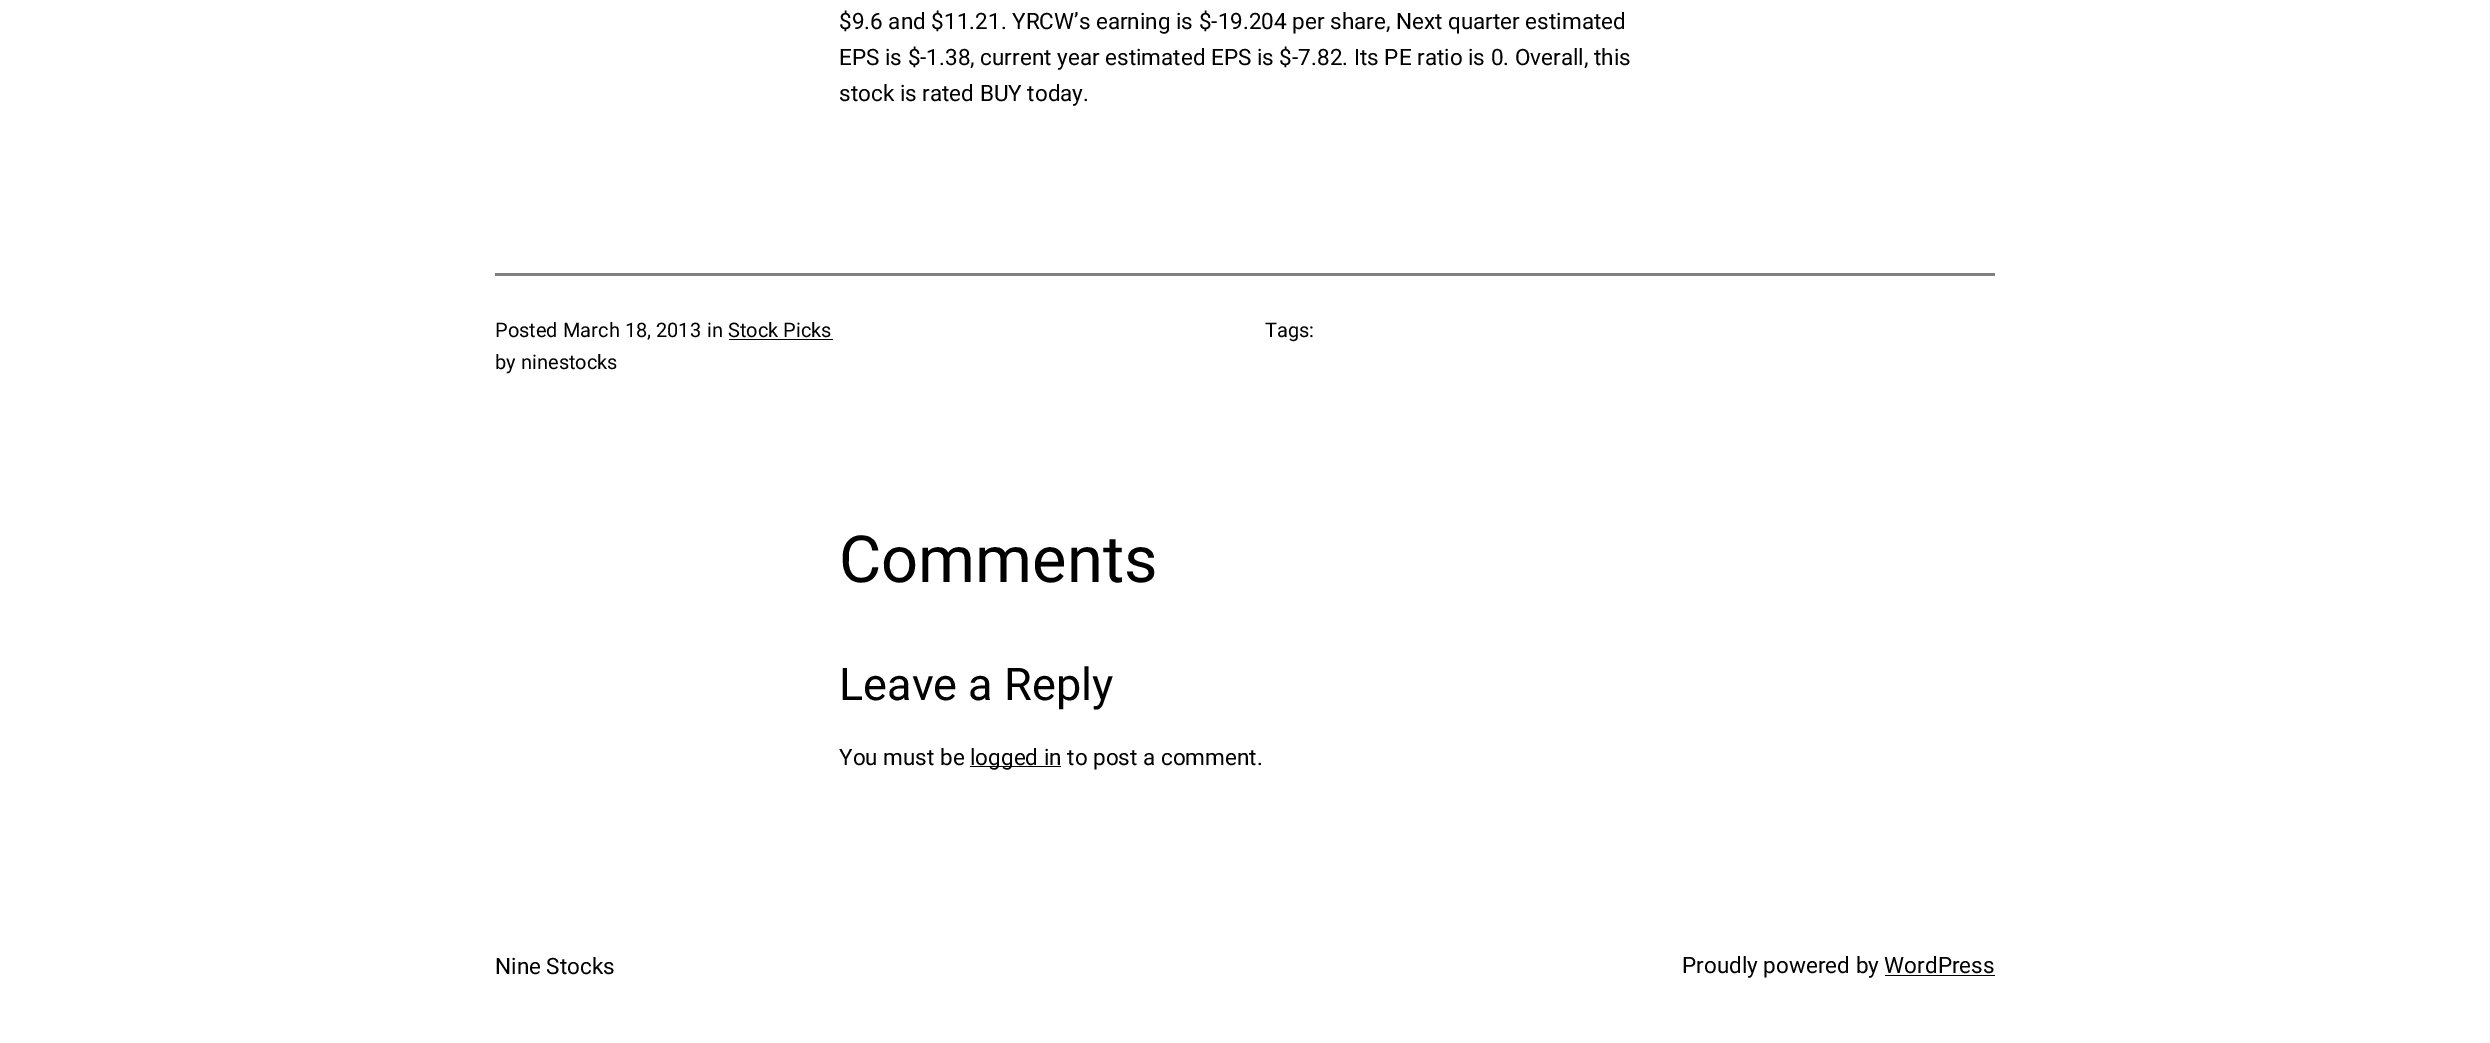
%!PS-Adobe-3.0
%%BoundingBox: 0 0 2490 1043
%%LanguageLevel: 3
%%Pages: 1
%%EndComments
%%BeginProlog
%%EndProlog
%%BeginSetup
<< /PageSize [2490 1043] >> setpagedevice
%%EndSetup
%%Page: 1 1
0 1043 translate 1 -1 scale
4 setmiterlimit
1 setgray
0 0 2490 1043 rectfill
0.502 setgray
495 273 1500 3 rectfill
0 setgray
729 339 104 1 rectfill
970 766 91 1 rectfill
1885 975 110 1 rectfill
/Roboto-Regular [22.5 0 0 -22.5 0 0] selectfont
839 29 moveto ($9.6 and $11.21. YRCW’s earning is $-19.204 per share, Next quarter estimated) show
839 65 moveto (EPS is $-1.38, current year estimated EPS is $-7.82. Its PE ratio is 0. Overall, this) show
839 101 moveto (stock is rated BUY today.) show
/Roboto-Regular [20 0 0 -20 0 0] selectfont
495 337 moveto (Posted) show
563 337 moveto (March 18, 2013) show
707 337 moveto (in) show
728 337 moveto (Stock Picks) show
495 369 moveto (by) show
521 369 moveto (ninestocks) show
1265 337 moveto (Tags:) show
/Roboto-Regular [65 0 0 -65 0 0] selectfont
839 582 moveto (Comments) show
/Roboto-Regular [45 0 0 -45 0 0] selectfont
839 700 moveto (Leave a Reply) show
/Roboto-Regular [22.5 0 0 -22.5 0 0] selectfont
839 765 moveto (You must be) show
970 765 moveto (logged in to post a comment.) show
495 974 moveto (Nine Stocks) show
1682 973 moveto (Proudly powered by WordPress) show
showpage
%%EOF
